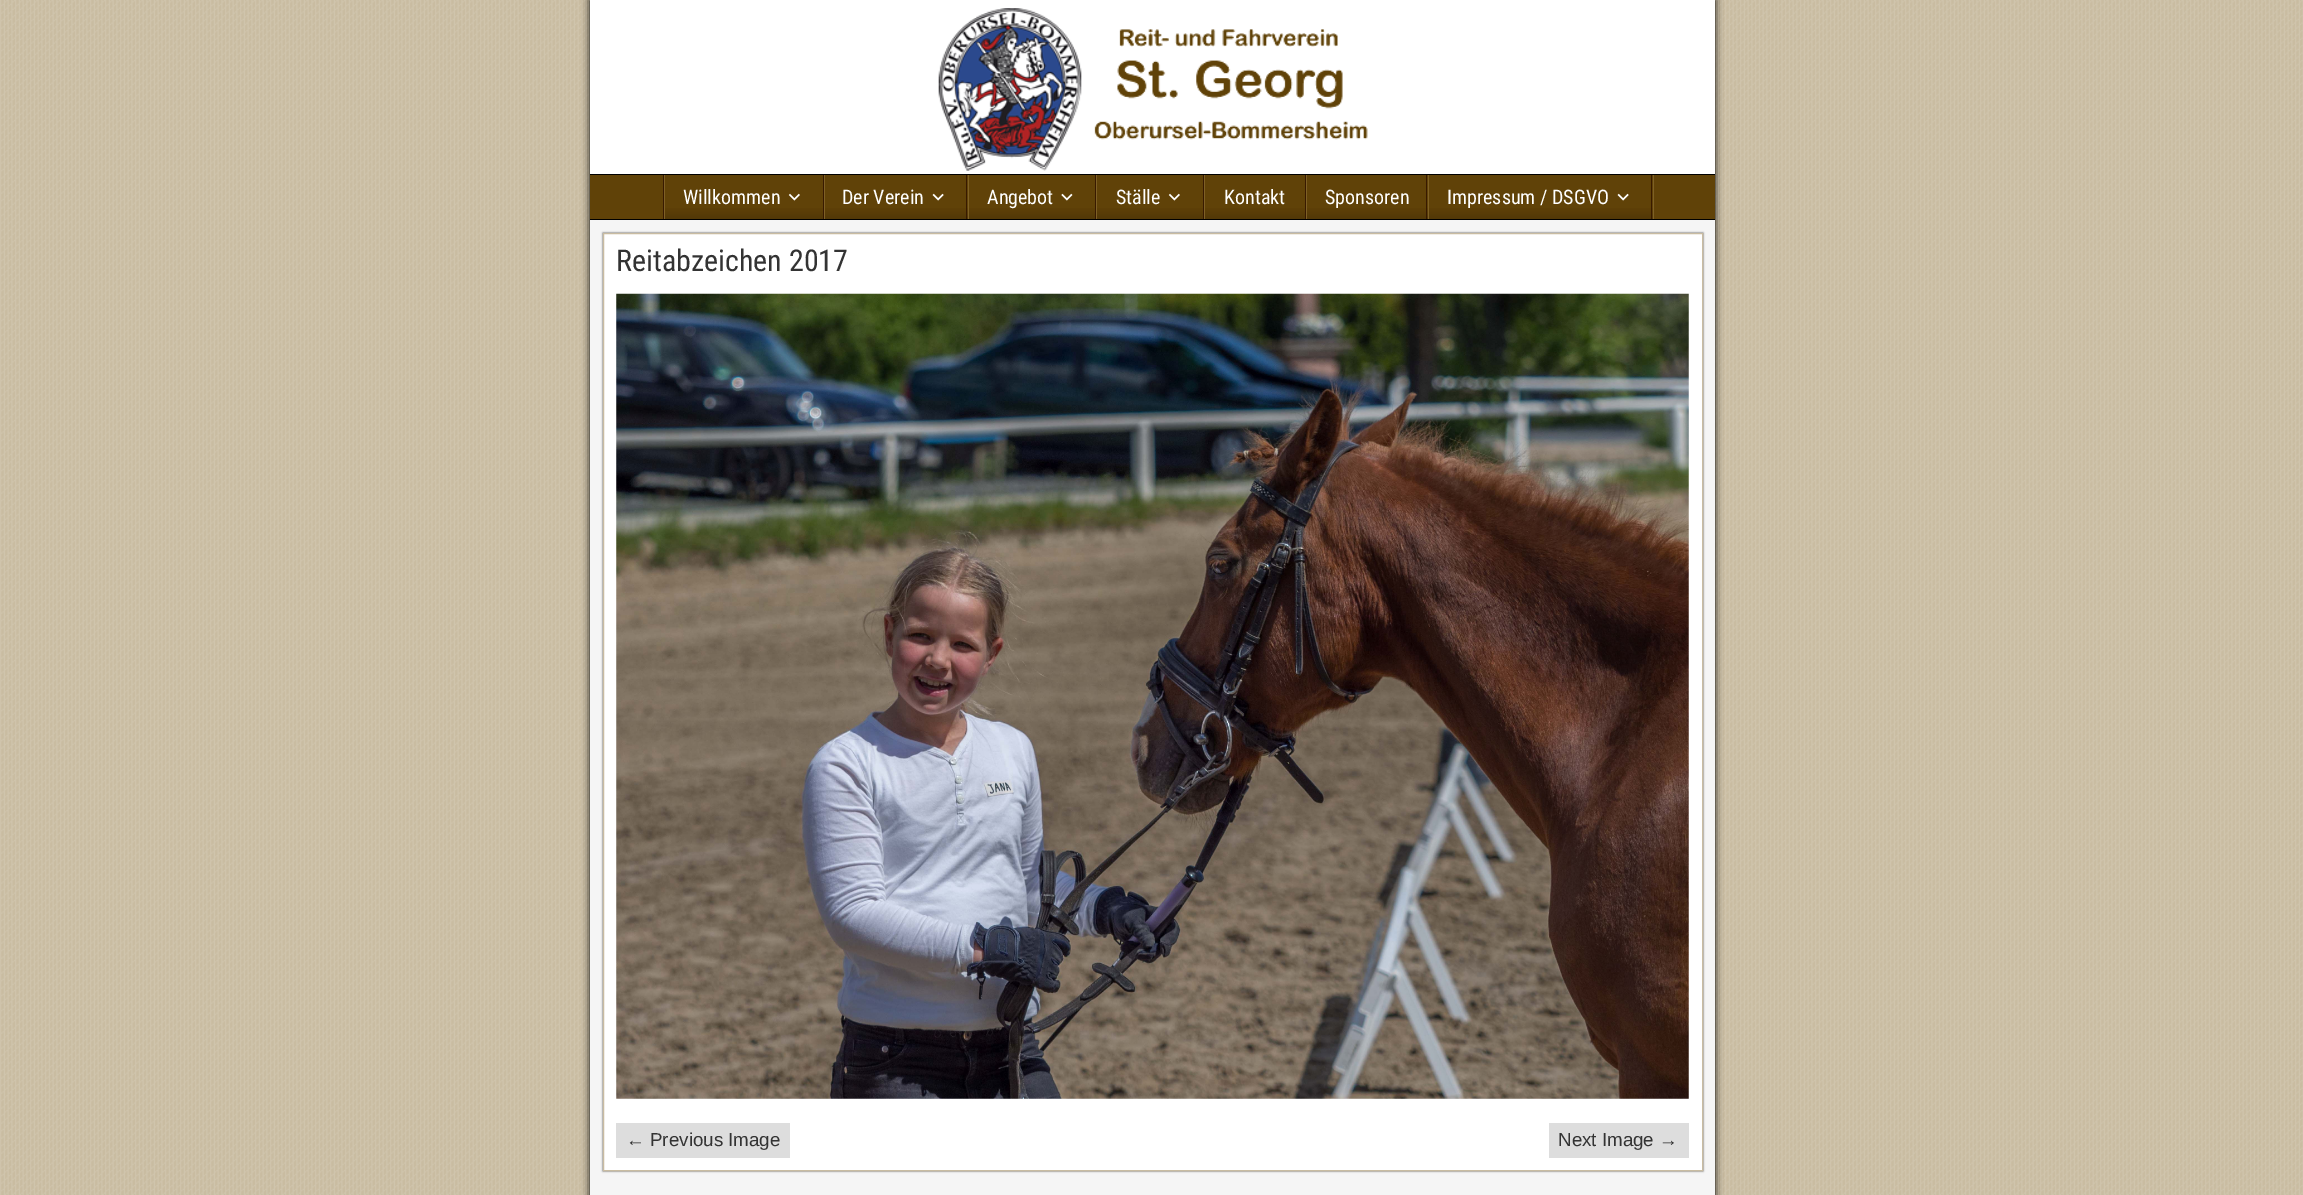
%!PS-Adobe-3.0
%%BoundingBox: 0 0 2303 1195
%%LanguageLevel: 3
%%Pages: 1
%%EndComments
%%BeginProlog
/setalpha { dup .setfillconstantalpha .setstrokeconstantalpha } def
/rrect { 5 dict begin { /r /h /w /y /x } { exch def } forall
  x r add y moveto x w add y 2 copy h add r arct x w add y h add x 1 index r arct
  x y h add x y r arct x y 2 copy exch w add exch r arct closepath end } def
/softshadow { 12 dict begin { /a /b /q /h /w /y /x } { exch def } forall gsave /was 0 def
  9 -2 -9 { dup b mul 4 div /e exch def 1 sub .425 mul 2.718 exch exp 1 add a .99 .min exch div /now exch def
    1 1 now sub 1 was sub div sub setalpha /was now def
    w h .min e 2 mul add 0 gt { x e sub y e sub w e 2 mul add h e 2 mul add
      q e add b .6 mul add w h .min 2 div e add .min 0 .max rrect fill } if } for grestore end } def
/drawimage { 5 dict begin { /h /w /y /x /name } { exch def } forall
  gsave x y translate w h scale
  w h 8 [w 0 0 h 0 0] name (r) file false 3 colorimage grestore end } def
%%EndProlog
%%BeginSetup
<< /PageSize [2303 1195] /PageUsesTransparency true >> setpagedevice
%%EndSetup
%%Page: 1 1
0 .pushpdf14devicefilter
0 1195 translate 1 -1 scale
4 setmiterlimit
0.788 0.737 0.631 setrgbcolor
0 0 2303 1195 rectfill
(images/1.raw) 0 0 2303 1195 drawimage
0 setgray
590 0 1125 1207 0 4 1 softshadow
1 setgray
590 0 1125 174 rectfill
(images/2.raw) 938 8 430 163 drawimage
0 setgray
590 174 1125 1 rectfill
0.376 0.259 0.031 setrgbcolor
590 175 1125 44 rectfill
0 setgray
590 219 1125 1 rectfill
0.494 0.376 0.149 setrgbcolor
1653 175 1 44 rectfill
0.22 0.102 0 setrgbcolor
663 175 1 44 rectfill
gsave newpath 665 208 moveto 823 208 lineto 823 219 lineto 665 219 lineto closepath clip newpath
<< /ShadingType 2 /ColorSpace /DeviceRGB /Coords [744 175 744 219] /Extend [true true] /Function << /FunctionType 3 /Domain [0 1] /Functions [<< /FunctionType 2 /Domain [0 1] /C0 [0.376 0.259 0.031] /C1 [0.376 0.259 0.031] /N 1 >> << /FunctionType 2 /Domain [0 1] /C0 [0.376 0.259 0.031] /C1 [0.322 0.22 0.027] /N 1 >>] /Bounds [0.7] /Encode [0 1 0 1] >> >> shfill grestore
823 175 1 44 rectfill
0.494 0.376 0.149 setrgbcolor
664 175 1 44 rectfill
(images/3.raw) 788 193 12 8 drawimage
gsave newpath 825 208 moveto 968 208 lineto 968 219 lineto 825 219 lineto closepath clip newpath
<< /ShadingType 2 /ColorSpace /DeviceRGB /Coords [896 175 896 219] /Extend [true true] /Function << /FunctionType 3 /Domain [0 1] /Functions [<< /FunctionType 2 /Domain [0 1] /C0 [0.376 0.259 0.031] /C1 [0.376 0.259 0.031] /N 1 >> << /FunctionType 2 /Domain [0 1] /C0 [0.376 0.259 0.031] /C1 [0.322 0.22 0.027] /N 1 >>] /Bounds [0.7] /Encode [0 1 0 1] >> >> shfill grestore
0.22 0.102 0 setrgbcolor
966 175 1 44 rectfill
0.494 0.376 0.149 setrgbcolor
824 175 1 44 rectfill
(images/4.raw) 932 193 12 8 drawimage
gsave newpath 969 208 moveto 1095 208 lineto 1095 219 lineto 969 219 lineto closepath clip newpath
<< /ShadingType 2 /ColorSpace /DeviceRGB /Coords [1032 175 1032 219] /Extend [true true] /Function << /FunctionType 3 /Domain [0 1] /Functions [<< /FunctionType 2 /Domain [0 1] /C0 [0.376 0.259 0.031] /C1 [0.376 0.259 0.031] /N 1 >> << /FunctionType 2 /Domain [0 1] /C0 [0.376 0.259 0.031] /C1 [0.322 0.22 0.027] /N 1 >>] /Bounds [0.7] /Encode [0 1 0 1] >> >> shfill grestore
0.22 0.102 0 setrgbcolor
1095 175 1 44 rectfill
0.494 0.376 0.149 setrgbcolor
968 175 1 44 rectfill
(images/5.raw) 1061 193 12 8 drawimage
gsave newpath 1097 208 moveto 1203 208 lineto 1203 219 lineto 1097 219 lineto closepath clip newpath
<< /ShadingType 2 /ColorSpace /DeviceRGB /Coords [1150 175 1150 219] /Extend [true true] /Function << /FunctionType 3 /Domain [0 1] /Functions [<< /FunctionType 2 /Domain [0 1] /C0 [0.376 0.259 0.031] /C1 [0.376 0.259 0.031] /N 1 >> << /FunctionType 2 /Domain [0 1] /C0 [0.376 0.259 0.031] /C1 [0.322 0.22 0.027] /N 1 >>] /Bounds [0.7] /Encode [0 1 0 1] >> >> shfill grestore
0.22 0.102 0 setrgbcolor
1203 175 1 44 rectfill
0.494 0.376 0.149 setrgbcolor
1096 175 1 44 rectfill
(images/3.raw) 1168 193 12 8 drawimage
gsave newpath 1205 208 moveto 1305 208 lineto 1305 219 lineto 1205 219 lineto closepath clip newpath
<< /ShadingType 2 /ColorSpace /DeviceRGB /Coords [1255 175 1255 219] /Extend [true true] /Function << /FunctionType 3 /Domain [0 1] /Functions [<< /FunctionType 2 /Domain [0 1] /C0 [0.376 0.259 0.031] /C1 [0.376 0.259 0.031] /N 1 >> << /FunctionType 2 /Domain [0 1] /C0 [0.376 0.259 0.031] /C1 [0.322 0.22 0.027] /N 1 >>] /Bounds [0.7] /Encode [0 1 0 1] >> >> shfill grestore
0.22 0.102 0 setrgbcolor
1305 175 1 44 rectfill
0.494 0.376 0.149 setrgbcolor
1204 175 1 44 rectfill
gsave newpath 1307 208 moveto 1428 208 lineto 1428 219 lineto 1307 219 lineto closepath clip newpath
<< /ShadingType 2 /ColorSpace /DeviceRGB /Coords [1367 175 1367 219] /Extend [true true] /Function << /FunctionType 3 /Domain [0 1] /Functions [<< /FunctionType 2 /Domain [0 1] /C0 [0.376 0.259 0.031] /C1 [0.376 0.259 0.031] /N 1 >> << /FunctionType 2 /Domain [0 1] /C0 [0.376 0.259 0.031] /C1 [0.322 0.22 0.027] /N 1 >>] /Bounds [0.7] /Encode [0 1 0 1] >> >> shfill grestore
0.22 0.102 0 setrgbcolor
1426 175 1 44 rectfill
0.494 0.376 0.149 setrgbcolor
1306 175 1 44 rectfill
gsave newpath 1429 208 moveto 1653 208 lineto 1653 219 lineto 1429 219 lineto closepath clip newpath
<< /ShadingType 2 /ColorSpace /DeviceRGB /Coords [1540 175 1540 219] /Extend [true true] /Function << /FunctionType 3 /Domain [0 1] /Functions [<< /FunctionType 2 /Domain [0 1] /C0 [0.376 0.259 0.031] /C1 [0.376 0.259 0.031] /N 1 >> << /FunctionType 2 /Domain [0 1] /C0 [0.376 0.259 0.031] /C1 [0.322 0.22 0.027] /N 1 >>] /Bounds [0.7] /Encode [0 1 0 1] >> >> shfill grestore
0.22 0.102 0 setrgbcolor
1651 175 1 44 rectfill
0.494 0.376 0.149 setrgbcolor
1428 175 1 44 rectfill
(images/4.raw) 1617 193 12 8 drawimage
0.961 setgray
590 220 1125 975 rectfill
0.2 setgray
603 233 1100 938 0 1 1 softshadow
1 setgray
newpath 603.5 233.5 moveto 1702.5 233.5 lineto 1702.5 1170.5 lineto 603.5 1170.5 lineto closepath gsave fill grestore
0.788 0.737 0.631 setrgbcolor
stroke
(images/6.raw) 616 293 1073 806 drawimage
0.867 setgray
616 1123 174 35 rectfill
1549 1123 140 35 rectfill
/RobotoCondensed-Regular [20 0 0 -20 0 0] selectfont
1 setgray
683 204 moveto (Willkommen) show
842 204 moveto (Der Verein) show
987 204 moveto (Angebot) show
1116 204 moveto (Ställe) show
1224 204 moveto (Kontakt) show
1325 204 moveto (Sponsoren) show
1447 204 moveto (Impressum / DSGVO) show
/RobotoCondensed-Regular [30 0 0 -30 0 0] selectfont
0.2 setgray
616 271 moveto (Reitabzeichen 2017) show
/LiberationSans-Regular [18.75 0 0 -18.75 0 0] selectfont
626 1146 moveto (← Previous Image) show
1558 1146 moveto (Next Image →) show
.poppdf14devicefilter showpage
%%EOF
